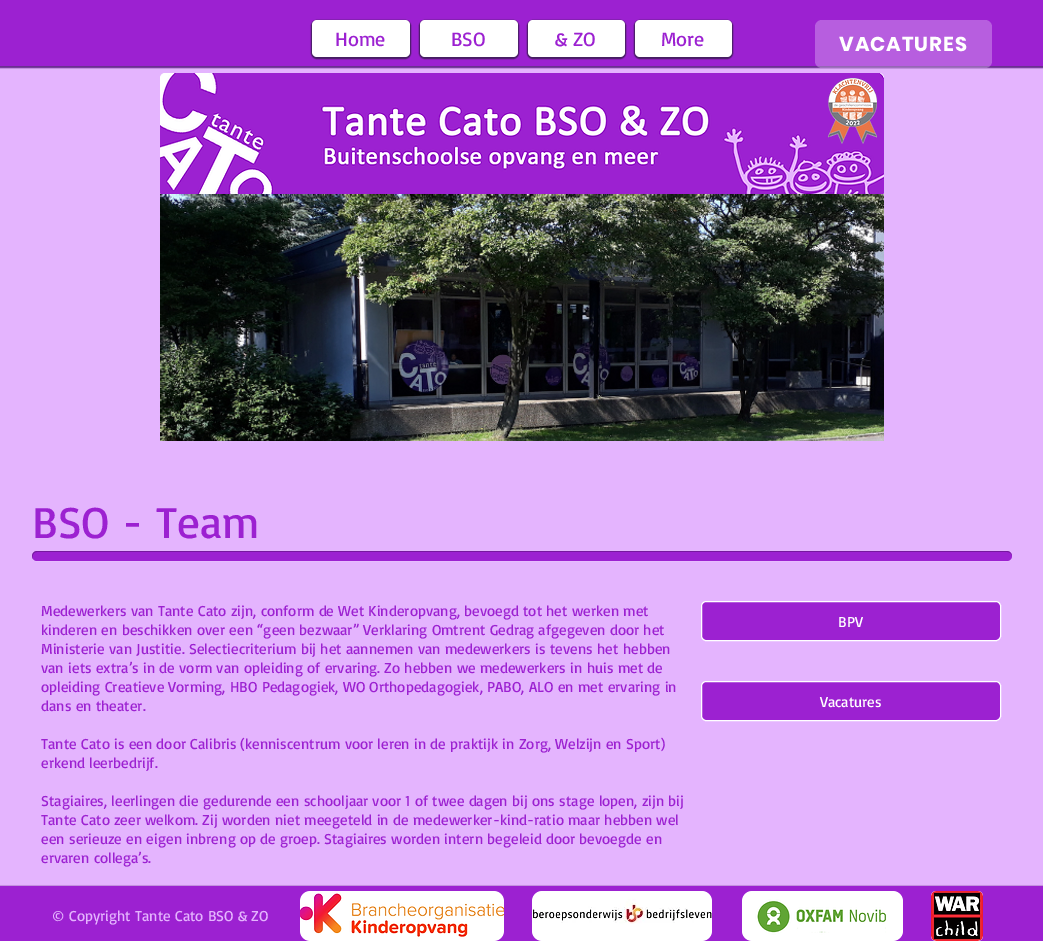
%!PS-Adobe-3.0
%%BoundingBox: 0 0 1043 941
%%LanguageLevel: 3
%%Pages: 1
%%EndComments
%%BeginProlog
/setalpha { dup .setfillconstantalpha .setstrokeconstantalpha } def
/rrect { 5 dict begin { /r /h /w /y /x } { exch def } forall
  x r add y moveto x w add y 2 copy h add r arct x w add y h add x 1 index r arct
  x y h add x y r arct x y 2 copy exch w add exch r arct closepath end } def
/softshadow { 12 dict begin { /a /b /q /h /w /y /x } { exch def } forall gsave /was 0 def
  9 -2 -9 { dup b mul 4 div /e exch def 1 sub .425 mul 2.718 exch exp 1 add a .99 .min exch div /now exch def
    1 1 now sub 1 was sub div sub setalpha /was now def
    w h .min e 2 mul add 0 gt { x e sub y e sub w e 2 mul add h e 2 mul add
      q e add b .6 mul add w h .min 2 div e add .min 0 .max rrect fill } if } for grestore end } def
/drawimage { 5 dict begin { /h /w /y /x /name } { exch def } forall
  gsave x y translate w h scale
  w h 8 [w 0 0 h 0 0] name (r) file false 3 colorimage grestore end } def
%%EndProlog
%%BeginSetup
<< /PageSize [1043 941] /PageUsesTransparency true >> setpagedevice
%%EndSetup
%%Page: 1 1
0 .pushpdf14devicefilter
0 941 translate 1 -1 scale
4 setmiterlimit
0.894 0.706 0.996 setrgbcolor
0 0 1043 941 rectfill
0.404 0.173 0.557 setrgbcolor
-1 0 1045 68 0 0.5 1 softshadow
0.612 0.129 0.82 setrgbcolor
0 0 1043 66 rectfill
0.267 0.114 0.373 setrgbcolor
311 20 100 39 6 0.5 1 softshadow
1 setgray
312 20 98 37 5 rrect fill
0.267 0.114 0.373 setrgbcolor
419 20 100 39 6 0.5 1 softshadow
1 setgray
420 20 98 37 5 rrect fill
0.267 0.114 0.373 setrgbcolor
527 20 99 39 6 0.5 1 softshadow
1 setgray
528 20 97 37 5 rrect fill
0.267 0.114 0.373 setrgbcolor
634 20 99 39 6 0.5 1 softshadow
1 setgray
635 20 97 37 5 rrect fill
0.33 setalpha
0.933 0.851 0.992 setrgbcolor
815 20 177 48 7 rrect fill
1 setalpha
1 setgray
160 73 724 125 5 rrect fill
(images/1.raw) 160 73 724 121 drawimage
(images/2.raw) 828 78 49 66 drawimage
(images/3.raw) 160 194 724 247 drawimage
0.906 0.737 0.996 setrgbcolor
newpath 32 556 moveto 32 559 34 562 37 562 curveto 1007 562 lineto 1010 562 1012 559 1012 556 curveto 1012 559 1010 561 1007 561 curveto 37 561 lineto 34 561 32 559 32 556 curveto closepath fill
0.612 0.129 0.82 setrgbcolor
32 551 980 10 5 rrect fill
0.25 setalpha
0 setgray
newpath 37 552 moveto 1007 552 lineto 1010 552 1012 554 1012 556 curveto 1012 554 1010 551 1007 551 curveto 37 551 lineto 33 551 31 555 33 559 curveto 32 556 33 552 37 552 curveto closepath fill
1 setalpha
0.612 0.129 0.82 setrgbcolor
701.5 601.5 299 39 4.5 rrect gsave fill grestore
1 setgray
stroke
0.612 0.129 0.82 setrgbcolor
701.5 681.5 299 39 4.5 rrect gsave fill grestore
1 setgray
stroke
0.404 0.173 0.557 setrgbcolor
-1 886 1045 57 0 0.5 1 softshadow
0.612 0.129 0.82 setrgbcolor
0 886 1043 55 rectfill
1 setgray
300 891 204 50 10 rrect fill
(images/4.raw) 300 891 204 50 drawimage
532 891 180 50 10 rrect fill
(images/5.raw) 532 891 180 50 drawimage
742 891 161 50 10 rrect fill
(images/6.raw) 742 891 161 50 drawimage
931 891 52 50 5 rrect fill
(images/7.raw) 931 891 52 50 drawimage
/Basic-Regular [20 0 0 -20 0 0] selectfont
0.612 0.129 0.82 setrgbcolor
335 46 moveto (Home) show
451 46 moveto (BSO) show
555 46 moveto (& ZO) show
661 46 moveto (More) show
/Poppins-Bold [20 0 0 -20 0 0] selectfont
1 setgray
839 51 moveto 1 0 (VACATURES) ashow
/Basic-Regular [45 0 0 -45 0 0] selectfont
0.612 0.129 0.82 setrgbcolor
32 538 moveto (BSO - Team) show
/Basic-Regular [15 0 0 -15 0 0] selectfont
41 616 moveto (Medewerkers van Tante Cato zijn, conform de Wet Kinderopvang, bevoegd tot het werken met) show
41 635 moveto (kinderen en beschikken over een “geen bezwaar” Verklaring Omtrent Gedrag afgegeven door het) show
41 654 moveto (Ministerie van Justitie. Selectiecriterium bij het aannemen van medewerkers is tevens het hebben) show
41 673 moveto (van iets extra’s in de vorm van opleiding of ervaring. Zo hebben we medewerkers in huis met de) show
41 692 moveto (opleiding Creatieve Vorming, HBO Pedagogiek, WO Orthopedagogiek, PABO, ALO en met ervaring in) show
41 711 moveto (dans en theater.) show
41 749 moveto (Tante Cato is een door Calibris \(kenniscentrum voor leren in de praktijk in Zorg, Welzijn en Sport\)) show
41 768 moveto (erkend leerbedrijf.) show
41 806 moveto (Stagiaires, leerlingen die gedurende een schooljaar voor 1 of twee dagen bij ons stage lopen, zijn bij) show
41 825 moveto (Tante Cato zeer welkom. Zij worden niet meegeteld in de medewerker-kind-ratio maar hebben wel) show
41 844 moveto (een serieuze en eigen inbreng op de groep. Stagiaires worden intern begeleid door bevoegde en) show
41 863 moveto (ervaren collega’s.) show
1 setgray
838 627 moveto (BPV) show
820 707 moveto (Vacatures) show
0.894 0.706 0.996 setrgbcolor
52 921 moveto (© Copyright Tante Cato BSO & ZO) show
.poppdf14devicefilter showpage
%%EOF
